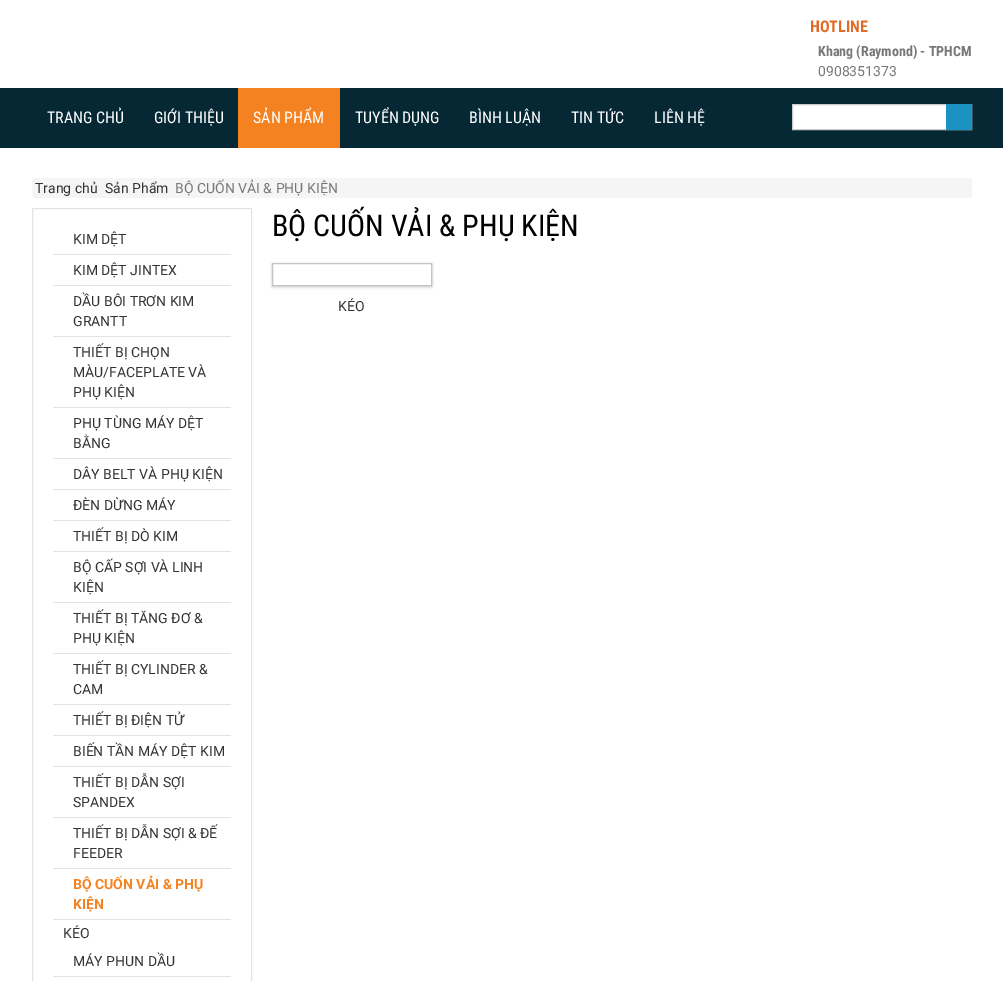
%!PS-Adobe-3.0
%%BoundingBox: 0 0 1003 981
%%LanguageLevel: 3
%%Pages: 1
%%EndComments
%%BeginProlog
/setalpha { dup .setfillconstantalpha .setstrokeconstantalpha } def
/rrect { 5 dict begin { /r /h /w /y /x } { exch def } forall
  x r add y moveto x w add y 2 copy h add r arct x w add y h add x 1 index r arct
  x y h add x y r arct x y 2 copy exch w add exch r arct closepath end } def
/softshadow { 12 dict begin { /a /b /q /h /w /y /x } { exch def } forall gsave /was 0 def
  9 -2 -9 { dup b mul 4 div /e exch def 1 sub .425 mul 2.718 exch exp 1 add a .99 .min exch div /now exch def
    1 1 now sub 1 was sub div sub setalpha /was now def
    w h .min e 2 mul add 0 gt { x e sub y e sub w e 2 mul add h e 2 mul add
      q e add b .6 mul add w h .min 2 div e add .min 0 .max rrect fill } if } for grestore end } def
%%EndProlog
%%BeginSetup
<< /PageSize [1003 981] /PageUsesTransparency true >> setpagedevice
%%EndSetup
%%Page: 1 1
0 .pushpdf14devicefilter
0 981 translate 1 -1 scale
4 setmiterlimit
1 setgray
0 0 1003 981 rectfill
0.024 0.157 0.208 setrgbcolor
0 88 1003 60 rectfill
0.961 0.51 0.125 setrgbcolor
238 88 102 60 rectfill
1 setgray
793 105 153 24 rectfill
0.8 setgray
792.5 104.5 179 25 rectstroke
0.102 0.576 0.769 setrgbcolor
946 104 26 26 rectfill
0.961 setgray
32 178 940 20 4 rrect fill
0.89 setgray
32.5 208.5 219 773 rectstroke
53 254 178 1 rectfill
53 285 178 1 rectfill
53 336 178 1 rectfill
53 407 178 1 rectfill
53 458 178 1 rectfill
53 489 178 1 rectfill
53 520 178 1 rectfill
53 551 178 1 rectfill
53 602 178 1 rectfill
53 653 178 1 rectfill
53 704 178 1 rectfill
53 735 178 1 rectfill
53 766 178 1 rectfill
53 817 178 1 rectfill
53 868 178 1 rectfill
53 919 178 1 rectfill
53 976 178 1 rectfill
gsave
newpath 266 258 moveto 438 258 lineto 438 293 lineto 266 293 lineto closepath 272 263 moveto 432 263 lineto 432 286 lineto 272 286 lineto closepath eoclip newpath
0 setgray
272 264 160 23 0 1.5 0.2 softshadow
grestore
0.769 setgray
272.5 263.5 159 22 rectstroke
/RobotoCondensed-Bold [16 0 0 -16 0 0] selectfont
0.882 0.416 0.149 setrgbcolor
810 32 moveto (HOTLINE) show
/RobotoCondensed-Bold [14 0 0 -14 0 0] selectfont
0.467 setgray
818 56 moveto (Khang \(Raymond\) - TPHCM) show
/Roboto-Regular [14 0 0 -14 0 0] selectfont
818 76 moveto (0908351373) show
/RobotoCondensed-Regular [16 0 0 -16 0 0] selectfont
1 setgray
47 123 moveto (TRANG CHỦ) show
154 123 moveto (GIỚI THIỆU) show
253 123 moveto (SẢN PHẨM) show
355 123 moveto (TUYỂN DỤNG) show
469 123 moveto (BÌNH LUẬN) show
571 123 moveto (TIN TỨC) show
654 123 moveto (LIÊN HỆ) show
/Roboto-Regular [14 0 0 -14 0 0] selectfont
0.2 setgray
35 193 moveto (Trang chủ) show
105 193 moveto (Sản Phẩm) show
0.467 setgray
175 193 moveto (BỘ CUỐN VẢI & PHỤ KIỆN) show
0.2 setgray
73 244 moveto (KIM DỆT) show
73 275 moveto (KIM DỆT JINTEX) show
73 306 moveto (DẦU BÔI TRƠN KIM) show
73 326 moveto (GRANTT) show
73 357 moveto (THIẾT BỊ CHỌN) show
73 377 moveto (MÀU/FACEPLATE VÀ) show
73 397 moveto (PHỤ KIỆN) show
73 428 moveto (PHỤ TÙNG MÁY DỆT) show
73 448 moveto (BẰNG) show
73 479 moveto (DÂY BELT VÀ PHỤ KIỆN) show
73 510 moveto (ĐÈN DỪNG MÁY) show
73 541 moveto (THIẾT BỊ DÒ KIM) show
73 572 moveto (BỘ CẤP SỢI VÀ LINH) show
73 592 moveto (KIỆN) show
73 623 moveto (THIẾT BỊ TĂNG ĐƠ &) show
73 643 moveto (PHỤ KIỆN) show
73 674 moveto (THIẾT BỊ CYLINDER &) show
73 694 moveto (CAM) show
73 725 moveto (THIẾT BỊ ĐIỆN TỬ) show
73 756 moveto (BIẾN TẦN MÁY DỆT KIM) show
73 787 moveto (THIẾT BỊ DẪN SỢI) show
73 807 moveto (SPANDEX) show
73 838 moveto (THIẾT BỊ DẪN SỢI & ĐẾ) show
73 858 moveto (FEEDER) show
/Roboto-Bold [14 0 0 -14 0 0] selectfont
0.961 0.51 0.125 setrgbcolor
73 889 moveto (BỘ CUỐN VẢI & PHỤ) show
73 909 moveto (KIỆN) show
/Roboto-Regular [14 0 0 -14 0 0] selectfont
0.2 setgray
63 938 moveto (KÉO) show
73 966 moveto (MÁY PHUN DẦU) show
/RobotoCondensed-Regular [30 0 0 -30 0 0] selectfont
0 setgray
272 236 moveto (BỘ CUỐN VẢI & PHỤ KIỆN) show
/Roboto-Regular [14 0 0 -14 0 0] selectfont
0.2 setgray
338 311 moveto (KÉO) show
.poppdf14devicefilter showpage
%%EOF
